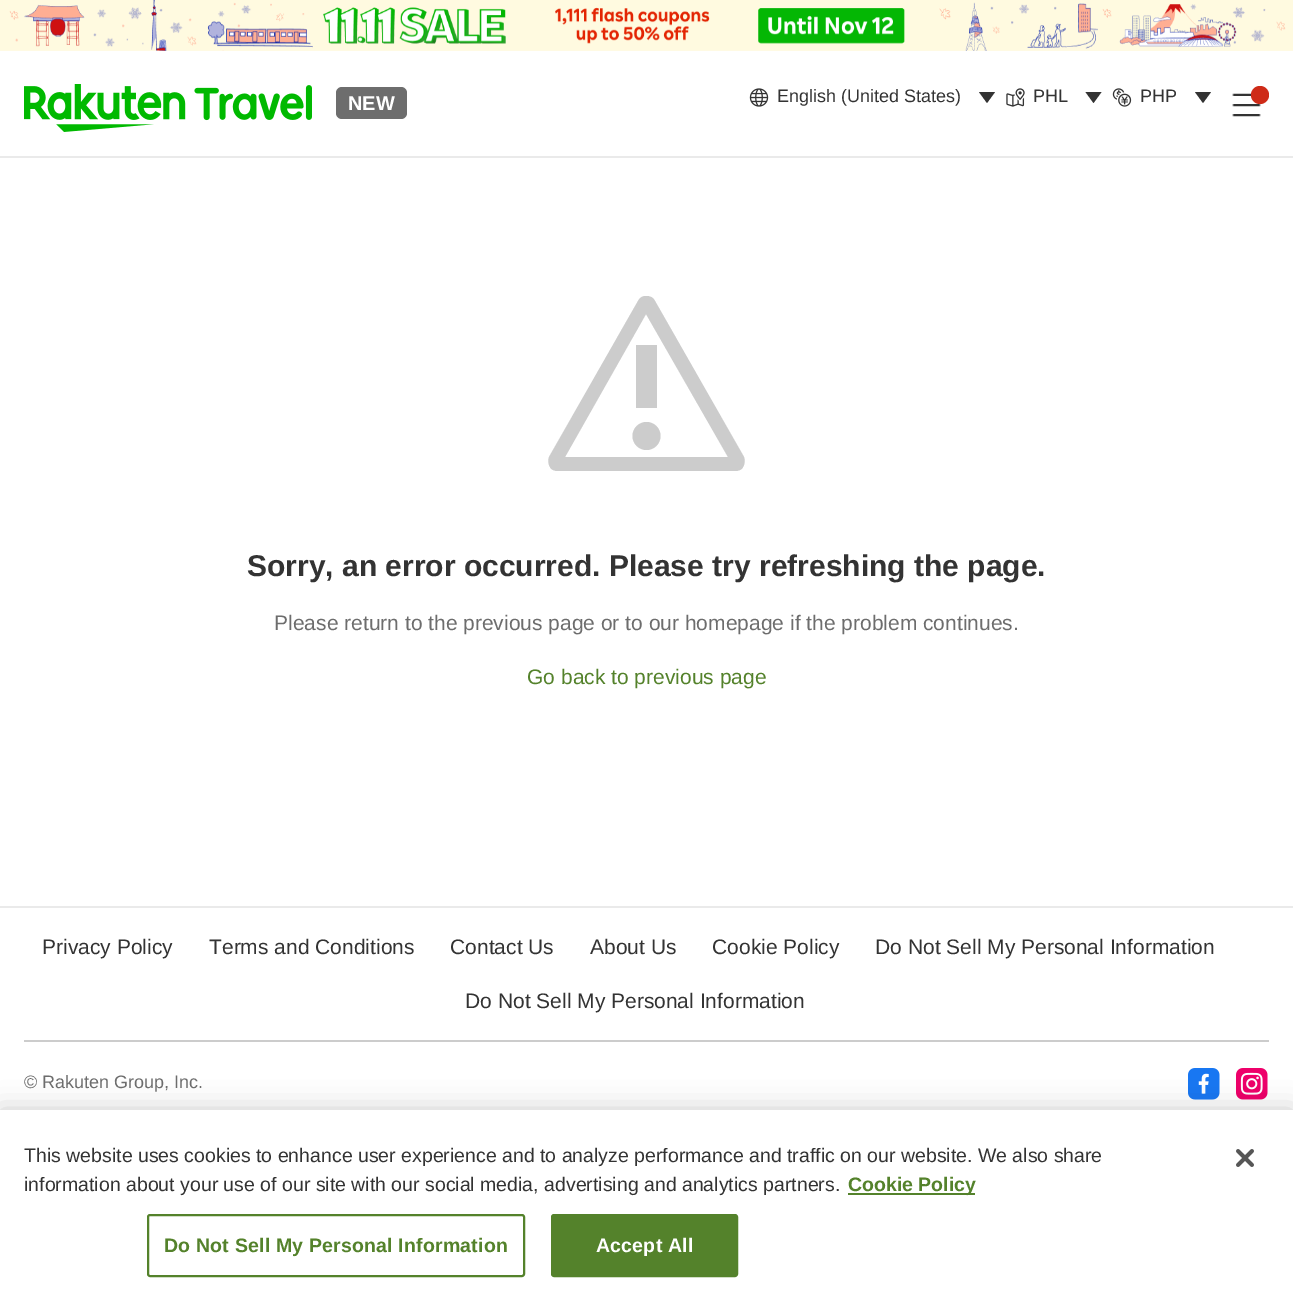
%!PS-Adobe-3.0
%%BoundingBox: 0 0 1293 1300
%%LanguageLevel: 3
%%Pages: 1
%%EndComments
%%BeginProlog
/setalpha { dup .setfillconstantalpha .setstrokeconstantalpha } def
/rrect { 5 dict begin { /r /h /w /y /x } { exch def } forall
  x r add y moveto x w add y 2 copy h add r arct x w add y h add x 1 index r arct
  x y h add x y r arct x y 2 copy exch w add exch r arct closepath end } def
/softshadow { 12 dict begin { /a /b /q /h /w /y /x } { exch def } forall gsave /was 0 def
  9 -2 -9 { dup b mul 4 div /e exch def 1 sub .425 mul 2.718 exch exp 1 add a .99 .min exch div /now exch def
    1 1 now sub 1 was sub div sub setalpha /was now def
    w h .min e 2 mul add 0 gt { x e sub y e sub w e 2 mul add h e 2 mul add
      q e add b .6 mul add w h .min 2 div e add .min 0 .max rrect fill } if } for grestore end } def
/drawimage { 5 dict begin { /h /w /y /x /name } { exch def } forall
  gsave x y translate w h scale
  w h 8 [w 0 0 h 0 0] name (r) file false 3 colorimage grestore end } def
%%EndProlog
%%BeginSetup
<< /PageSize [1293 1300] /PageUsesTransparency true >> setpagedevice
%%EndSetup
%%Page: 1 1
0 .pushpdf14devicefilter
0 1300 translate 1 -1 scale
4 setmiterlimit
1 setgray
0 0 1293 1300 rectfill
(images/1.raw) 0 0 1293 51 drawimage
0.918 setgray
0 156 1293 2 rectfill
(images/2.raw) 24 84 288 48 drawimage
0.427 setgray
336 87 71 32 6 rrect fill
(images/3.raw) 749 88 20 19 drawimage
0.2 setgray
newpath 987 103 moveto 979 92 lineto 995 92 lineto closepath eofill
(images/4.raw) 1006 88 19 19 drawimage
newpath 1093.5 103 moveto 1085.5 92 lineto 1101.5 92 lineto closepath eofill
(images/5.raw) 1112 88 20 19 drawimage
newpath 1203 103 moveto 1195 92 lineto 1211 92 lineto closepath eofill
(images/6.raw) 1232 93 29 24 drawimage
0.808 0.169 0.094 setrgbcolor
newpath 1260 95 9 0 360 arc closepath fill
0.8 setgray
newpath 744 457 moveto 655 301 lineto 653 297 650 296 646 296 curveto 643 296 640 297 638 301 curveto 549 457 lineto 548 460 548 464 550 467 curveto 551 470 555 471 558 471 curveto 735 471 lineto 738 471 742 470 743 467 curveto 745 464 745 460 744 457 curveto closepath 565 457 moveto 646 314 lineto 728 457 lineto closepath eofill
636 345 21 63 rectfill
newpath 646.5 436 14 0 360 arc closepath fill
0.918 setgray
0 906 1293 2 rectfill
0.8 setgray
24 1040 1245 2 rectfill
(images/7.raw) 1188 1068 32 32 drawimage
(images/8.raw) 1236 1068 32 32 drawimage
0 setgray
0 1110 1293 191 0 13.5 0.2 softshadow
1 setgray
0 1110 1293 190 rectfill
0.329 0.51 0.169 setrgbcolor
848 1193 127 2 rectfill
2 setlinewidth
148 1215 376 61 2 rrect stroke
552 1215 185 61 2 rrect gsave fill grestore
stroke
(images/9.raw) 1236 1149 18 18 drawimage
/LiberationSans-Bold [20 0 0 -20 0 0] selectfont
1 setgray
348 110 moveto (NEW) show
/LiberationSans-Regular [18 0 0 -18 0 0] selectfont
0.2 setgray
777 102 moveto (English \(United States\)) show
1033 102 moveto (PHL) show
1140 102 moveto (PHP) show
/LiberationSans-Bold [30 0 0 -30 0 0] selectfont
247 576 moveto (Sorry, an error occurred. Please try refreshing the page.) show
/LiberationSans-Regular [21 0 0 -21 0 0] selectfont
0.427 setgray
274 630 moveto (Please return to the previous page or to our homepage if the problem continues.) show
0.329 0.51 0.169 setrgbcolor
527 684 moveto (Go back to previous page) show
0.2 setgray
42 954 moveto (Privacy Policy) show
209 954 moveto (Terms and Conditions) show
450 954 moveto (Contact Us) show
590 954 moveto (About Us) show
712 954 moveto (Cookie Policy) show
875 954 moveto (Do Not Sell My Personal Information) show
465 1008 moveto (Do Not Sell My Personal Information) show
/LiberationSans-Regular [18 0 0 -18 0 0] selectfont
0.427 setgray
24 1088 moveto (© Rakuten Group, Inc.) show
/LiberationSans-Regular [19.5 0 0 -19.5 0 0] selectfont
0.2 setgray
24 1162 moveto (This website uses cookies to enhance user experience and to analyze performance and traffic on our website. We also share) show
24 1191 moveto (information about your use of our site with our social media, advertising and analytics partners.) show
/LiberationSans-Bold [19.5 0 0 -19.5 0 0] selectfont
0.329 0.51 0.169 setrgbcolor
848 1191 moveto (Cookie Policy) show
164 1252 moveto 0.2 0 (Do Not Sell My Personal Information) ashow
1 setgray
596 1252 moveto 0.2 0 (Accept All) ashow
.poppdf14devicefilter showpage
%%EOF
